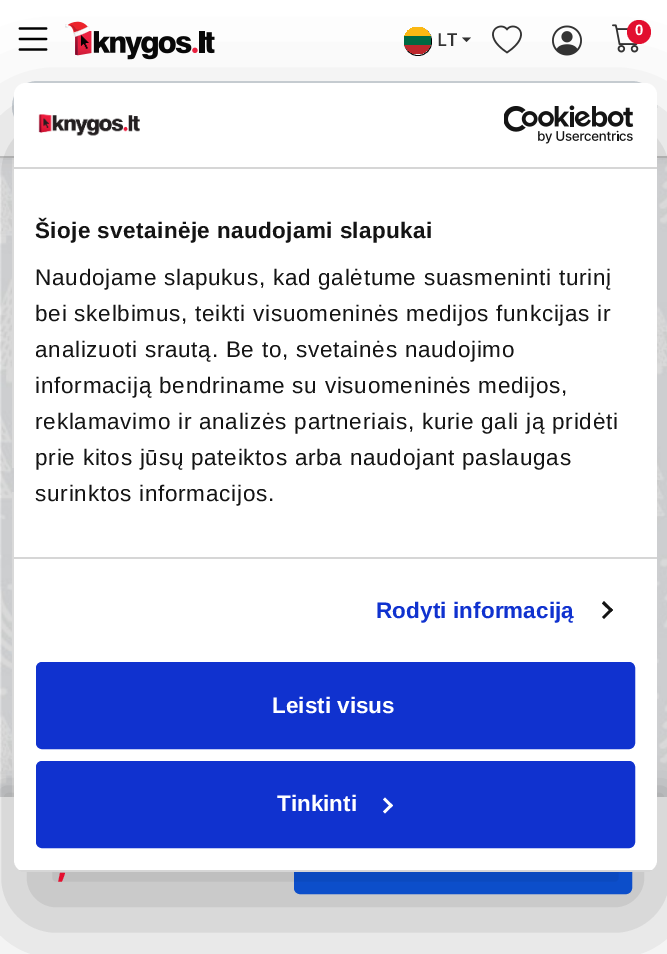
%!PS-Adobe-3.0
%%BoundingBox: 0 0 667 954
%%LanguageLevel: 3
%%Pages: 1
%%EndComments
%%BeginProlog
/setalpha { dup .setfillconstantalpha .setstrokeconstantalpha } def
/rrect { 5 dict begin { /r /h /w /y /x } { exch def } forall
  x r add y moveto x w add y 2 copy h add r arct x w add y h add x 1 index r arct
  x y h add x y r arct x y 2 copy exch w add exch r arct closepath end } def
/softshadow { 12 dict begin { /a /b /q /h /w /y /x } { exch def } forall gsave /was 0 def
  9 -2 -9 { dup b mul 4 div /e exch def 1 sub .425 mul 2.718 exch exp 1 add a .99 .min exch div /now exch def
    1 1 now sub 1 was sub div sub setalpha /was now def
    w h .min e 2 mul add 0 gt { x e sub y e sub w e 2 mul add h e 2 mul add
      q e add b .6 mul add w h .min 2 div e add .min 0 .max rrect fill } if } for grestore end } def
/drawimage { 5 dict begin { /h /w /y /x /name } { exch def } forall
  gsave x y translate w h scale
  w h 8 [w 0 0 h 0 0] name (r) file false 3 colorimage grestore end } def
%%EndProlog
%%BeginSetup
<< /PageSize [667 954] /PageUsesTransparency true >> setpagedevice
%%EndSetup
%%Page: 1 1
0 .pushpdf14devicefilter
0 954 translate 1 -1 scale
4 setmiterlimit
1 setgray
0 0 667 954 rectfill
(images/1.raw) 0 158 667 639 drawimage
12 158 2 310 rectfill
0 setgray
0 0 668 158 0 7.5 0.1 softshadow
1 setgray
0 0 667 156 rectfill
0.8 setgray
0 156 667 2 rectfill
(images/2.raw) 18 27 30 24 drawimage
(images/3.raw) 65 21 150 39 drawimage
0 setgray
0.8 setlinewidth
404.4 27.4 27.2 28.2 13.6 rrect stroke
gsave
404 27 27 27 13.5 rrect clip newpath
0.757 0.153 0.176 setrgbcolor
404 45 27 9 rectfill
0 0.416 0.267 setrgbcolor
404 36 27 9 rectfill
0.992 0.725 0.075 setrgbcolor
404 27 27 9 rectfill
grestore
0.2 setgray
newpath 462 37.5 moveto 471 37.5 lineto 466.5 42 lineto closepath fill
(images/4.raw) 492 25 30 29 drawimage
(images/5.raw) 552 25 30 31 drawimage
(images/6.raw) 612 24 27 29 drawimage
0.894 0.059 0.184 setrgbcolor
newpath 639 32 12 0 360 arc closepath fill
0.808 0.831 0.855 setrgbcolor
2 setlinewidth
13 82 643 49 24.5 rrect stroke
1 setgray
12 492 2 305 rectfill
0 setgray
0 789 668 158 0 15 0.2 softshadow
1 setgray
0 797 667 157 rectfill
0.059 0.384 0.996 setrgbcolor
295 834 336 59 5 rrect gsave fill grestore
stroke
0 setgray
14 131 643 789 12 51 0.3 softshadow
1 setgray
14 83 643 789 12 rrect fill
0.839 setgray
14 167 643 2 rectfill
(images/7.raw) 38 114 102 22 drawimage
(images/8.raw) 504 105 130 39 drawimage
14 557 643 2 rectfill
0.078 setgray
newpath 604 601 moveto 613 610 lineto 611 612 lineto 602 603.5 lineto closepath fill
newpath 611 608 moveto 613 610 lineto 604 619 lineto 602 617 lineto closepath fill
gsave
14 83 643 789 12 rrect clip newpath
0.839 setgray
14 870 643 2 rectfill
grestore
0.063 0.196 0.812 setrgbcolor
37.5 663.5 596 84 4.5 rrect gsave fill grestore
3 setlinewidth
stroke
37.5 762.5 596 84 4.5 rrect gsave fill grestore
stroke
1 setgray
newpath 385 797.5 moveto 393 805.5 lineto 391 807.5 lineto 383 799.5 lineto closepath fill
newpath 391 803.5 moveto 393 805.5 lineto 385 813.5 lineto 383 811.5 lineto closepath fill
/OpenSans-SemiBold [18 0 0 -18 0 0] selectfont
0.2 setgray
437 46 moveto (LT) show
/LiberationSans-Bold [15 0 0 -15 0 0] selectfont
1 setgray
635 35 moveto (0) show
/LiberationSans-Bold [22.5 0 0 -22.5 0 0] selectfont
0.078 setgray
35 238 moveto 0.4 0 (Šioje svetainėje naudojami slapukai) ashow
/LiberationSans-Regular [22.5 0 0 -22.5 0 0] selectfont
35 285 moveto 0.75 0 (Naudojame slapukus, kad galėtume suasmeninti turinį) ashow
35 321 moveto 0.75 0 (bei skelbimus, teikti visuomeninės medijos funkcijas ir) ashow
35 357 moveto 0.75 0 (analizuoti srautą. Be to, svetainės naudojimo) ashow
35 393 moveto 0.75 0 (informaciją bendriname su visuomeninės medijos,) ashow
35 429 moveto 0.75 0 (reklamavimo ir analizės partneriais, kurie gali ją pridėti) ashow
35 465 moveto 0.75 0 (prie kitos jūsų pateiktos arba naudojant paslaugas) ashow
35 501 moveto 0.75 0 (surinktos informacijos.) ashow
/LiberationSans-Bold [22.5 0 0 -22.5 0 0] selectfont
0.063 0.196 0.812 setrgbcolor
376 618 moveto 0.1 0 (Rodyti informaciją) ashow
1 setgray
272 713 moveto (Leisti visus) show
277 811 moveto (Tinkinti) show
/OpenSans-Bold [36 0 0 -36 0 0] selectfont
0.894 0.059 0.184 setrgbcolor
57 877 moveto (,) show
.poppdf14devicefilter showpage
%%EOF
